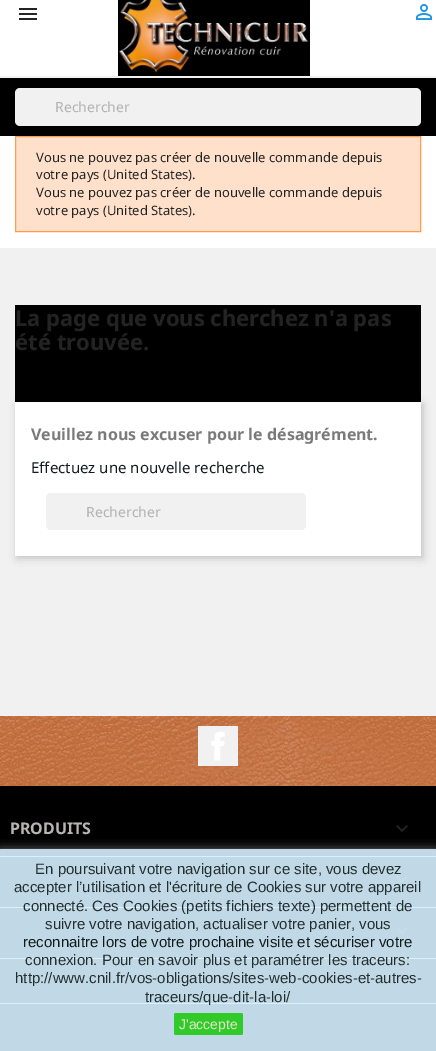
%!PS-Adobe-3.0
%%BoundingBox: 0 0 436 1051
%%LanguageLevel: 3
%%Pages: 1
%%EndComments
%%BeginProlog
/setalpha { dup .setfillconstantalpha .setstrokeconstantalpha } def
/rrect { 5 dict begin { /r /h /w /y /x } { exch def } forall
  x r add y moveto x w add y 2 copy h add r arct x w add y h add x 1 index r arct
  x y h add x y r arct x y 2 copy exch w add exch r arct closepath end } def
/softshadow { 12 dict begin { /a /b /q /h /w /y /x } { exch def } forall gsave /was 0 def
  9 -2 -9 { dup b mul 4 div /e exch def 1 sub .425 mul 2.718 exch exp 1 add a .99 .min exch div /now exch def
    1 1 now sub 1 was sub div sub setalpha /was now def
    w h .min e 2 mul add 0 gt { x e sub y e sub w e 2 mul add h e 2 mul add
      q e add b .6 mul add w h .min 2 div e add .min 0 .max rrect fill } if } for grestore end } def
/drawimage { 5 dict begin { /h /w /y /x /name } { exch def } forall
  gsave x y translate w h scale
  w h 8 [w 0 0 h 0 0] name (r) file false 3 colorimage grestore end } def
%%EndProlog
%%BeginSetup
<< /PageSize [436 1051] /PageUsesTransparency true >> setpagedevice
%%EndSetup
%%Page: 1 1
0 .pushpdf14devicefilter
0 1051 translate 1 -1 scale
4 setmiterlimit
1 setgray
0 0 436 1051 rectfill
0 setgray
0 78 436 58 rectfill
0.945 setgray
0 76 436 2 rectfill
(images/1.raw) 19 8 18 12 drawimage
(images/2.raw) 118 0 192 76 drawimage
(images/3.raw) 416 4 16 16 drawimage
15 88 406 38 5 rrect fill
1 0.882 0.796 setrgbcolor
newpath 15.5 136.5 moveto 420.5 136.5 lineto 420.5 231.5 lineto 15.5 231.5 lineto closepath gsave fill grestore
1 0.604 0.322 setrgbcolor
stroke
0.945 setgray
0 248 436 468 rectfill
0 setgray
15 305 406 97 rectfill
17 404 406 154 0 4 0.2 softshadow
1 setgray
15 402 406 154 rectfill
0.945 setgray
46 493 260 37 5 rrect fill
(images/4.raw) 0 716 436 70 drawimage
198 726 40 40 rectfill
(images/5.raw) 211 732 14 29 drawimage
0 setgray
0 786 436 265 rectfill
0.965 setgray
0 856 436 1 rectfill
(images/6.raw) 396 825 12 7 drawimage
0 907 436 1 rectfill
(images/6.raw) 396 876 12 7 drawimage
0 958 436 1 rectfill
(images/6.raw) 396 927 12 7 drawimage
0 1003 436 1 rectfill
gsave
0 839 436 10 rectclip
0.431 setgray
0 849 436 202 0 5 1 softshadow
grestore
0.9 setalpha
0.839 0.945 1 setrgbcolor
0 849 436 202 rectfill
0.125 0.788 0.078 setrgbcolor
174 1013 69 22 2 rrect fill
/NotoSans-Regular [14 0 0 -14 0 0] selectfont
1 setalpha
0.694 setgray
55 112 moveto (Rechercher) show
/NotoSans-Regular [13 0 0 -13 0 0] selectfont
0.137 setgray
36 162 moveto (Vous ne pouvez pas créer de nouvelle commande depuis) show
36 179 moveto (votre pays \(United States\).) show
36 197 moveto (Vous ne pouvez pas créer de nouvelle commande depuis) show
36 215 moveto (votre pays \(United States\).) show
/NotoSans-Bold [22 0 0 -22 0 0] selectfont
15 326 moveto (La page que vous cherchez n'a pas) show
15 350 moveto (été trouvée.) show
/NotoSans-Bold [16 0 0 -16 0 0] selectfont
0.478 setgray
31 440 moveto (Veuillez nous excuser pour le désagrément.) show
/NotoSans-Regular [15 0 0 -15 0 0] selectfont
0.067 0.106 0.106 setrgbcolor
31 473 moveto (Effectuez une nouvelle recherche) show
/NotoSans-Regular [14 0 0 -14 0 0] selectfont
0.694 setgray
86 517 moveto (Rechercher) show
/NotoSans-Bold [16 0 0 -16 0 0] selectfont
0.718 0.71 0.694 setrgbcolor
10 834 moveto (PRODUITS) show
/LiberationSans-Regular [15 0 0 -15 0 0] selectfont
0.137 0.18 0.184 setrgbcolor
35 874 moveto (En poursuivant votre navigation sur ce site, vous devez) show
14 892 moveto (accepter l’utilisation et l'écriture de Cookies sur votre appareil) show
23 911 moveto (connecté. Ces Cookies \(petits fichiers texte\) permettent de) show
45 929 moveto (suivre votre navigation, actualiser votre panier, vous) show
0.067 0.106 0.106 setrgbcolor
23 947 moveto (reconnaitre lors de votre prochaine visite et sécuriser votre) show
0.137 0.18 0.184 setrgbcolor
25 965 moveto (connexion. Pour en savoir plus et paramétrer les traceurs:) show
15 983 moveto (http://www.cnil.fr/vos-obligations/sites-web-cookies-et-autres-) show
145 1002 moveto (traceurs/que-dit-la-loi/) show
/LiberationSans-Regular [14 0 0 -14 0 0] selectfont
0.878 0.902 0.792 setrgbcolor
179 1029 moveto (J'accepte) show
.poppdf14devicefilter showpage
%%EOF
